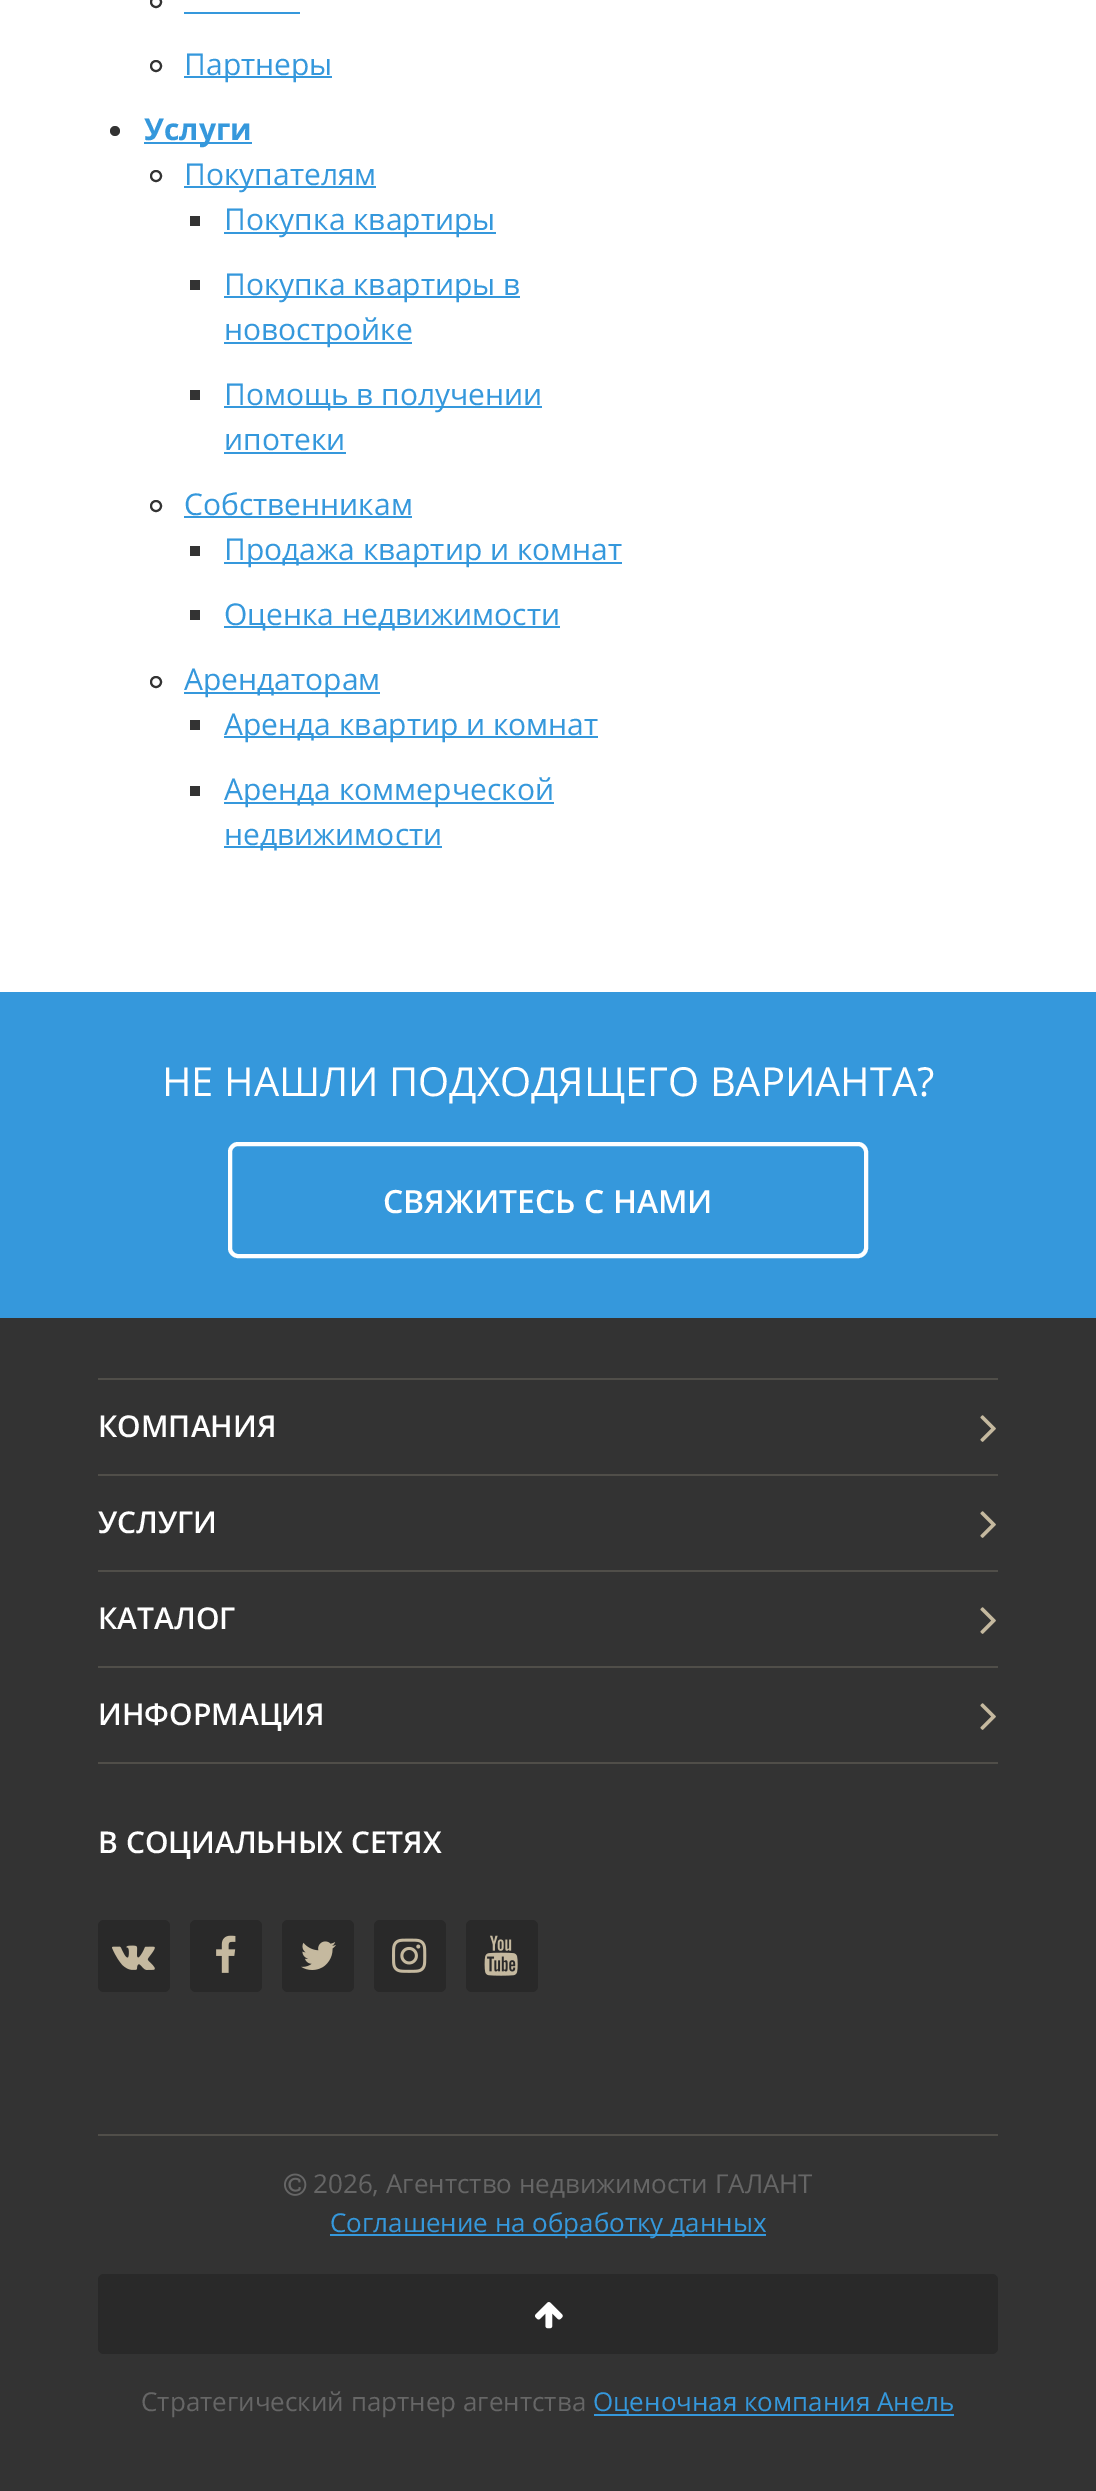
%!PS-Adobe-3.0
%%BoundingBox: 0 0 1096 2491
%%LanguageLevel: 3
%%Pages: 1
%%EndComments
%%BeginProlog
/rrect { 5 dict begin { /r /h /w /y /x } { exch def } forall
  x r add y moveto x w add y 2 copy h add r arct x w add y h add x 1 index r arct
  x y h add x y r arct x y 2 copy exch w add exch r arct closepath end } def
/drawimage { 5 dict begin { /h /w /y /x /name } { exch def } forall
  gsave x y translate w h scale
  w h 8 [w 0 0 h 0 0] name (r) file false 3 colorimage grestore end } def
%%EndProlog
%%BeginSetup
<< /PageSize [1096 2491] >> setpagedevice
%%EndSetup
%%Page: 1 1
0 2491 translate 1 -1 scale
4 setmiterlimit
1 setgray
0 0 1096 2491 rectfill
0.2 setgray
2 setlinewidth
newpath 156 2 5 0 360 arc closepath stroke
0.208 0.596 0.863 setrgbcolor
184 12 116 2 rectfill
0.2 setgray
newpath 156 66 5 0 360 arc closepath stroke
0.208 0.596 0.863 setrgbcolor
184 76 148 2 rectfill
0.2 setgray
newpath 115 131 5 0 360 arc closepath fill
0.208 0.596 0.863 setrgbcolor
144 142 108 2 rectfill
0.2 setgray
newpath 156 176 5 0 360 arc closepath stroke
0.208 0.596 0.863 setrgbcolor
184 186 192 2 rectfill
0.2 setgray
190 216 10 10 rectfill
0.208 0.596 0.863 setrgbcolor
224 232 272 2 rectfill
0.2 setgray
190 280 10 10 rectfill
0.208 0.596 0.863 setrgbcolor
224 296 296 2 rectfill
224 342 188 2 rectfill
0.2 setgray
190 390 10 10 rectfill
0.208 0.596 0.863 setrgbcolor
224 406 318 2 rectfill
224 452 122 2 rectfill
0.2 setgray
newpath 156 506 5 0 360 arc closepath stroke
0.208 0.596 0.863 setrgbcolor
184 516 228 2 rectfill
0.2 setgray
190 546 10 10 rectfill
0.208 0.596 0.863 setrgbcolor
224 562 398 2 rectfill
0.2 setgray
190 610 10 10 rectfill
0.208 0.596 0.863 setrgbcolor
224 626 336 2 rectfill
0.2 setgray
newpath 156 682 5 0 360 arc closepath stroke
0.208 0.596 0.863 setrgbcolor
184 692 196 2 rectfill
0.2 setgray
190 720 10 10 rectfill
0.208 0.596 0.863 setrgbcolor
224 736 374 2 rectfill
0.2 setgray
190 786 10 10 rectfill
0.208 0.596 0.863 setrgbcolor
224 802 330 2 rectfill
224 846 218 2 rectfill
0 992 1096 326 rectfill
1 setgray
4 setlinewidth
230 1144 636 112 8 rrect stroke
0.2 setgray
0 1318 1096 1173 rectfill
0.314 0.306 0.286 setrgbcolor
98 1378 900 2 rectfill
(images/1.raw) 980 1415 16 27 drawimage
98 1474 900 2 rectfill
(images/1.raw) 980 1511 16 27 drawimage
98 1570 900 2 rectfill
(images/1.raw) 980 1607 16 27 drawimage
98 1762 900 2 rectfill
98 1666 900 2 rectfill
(images/1.raw) 980 1703 16 27 drawimage
0.161 setgray
98 1920 72 72 6 rrect fill
(images/2.raw) 112 1945 43 25 drawimage
190 1920 72 72 6 rrect fill
(images/3.raw) 216 1935 20 38 drawimage
282 1920 72 72 6 rrect fill
(images/4.raw) 301 1941 35 29 drawimage
374 1920 72 72 6 rrect fill
(images/5.raw) 392 1938 35 35 drawimage
466 1920 72 72 6 rrect fill
(images/6.raw) 484 1935 34 41 drawimage
0.314 0.306 0.286 setrgbcolor
98 2134 900 2 rectfill
(images/7.raw) 284 2173 23 23 drawimage
0.208 0.596 0.863 setrgbcolor
330 2234 436 2 rectfill
0.161 setgray
98 2274 900 80 6 rrect fill
(images/8.raw) 535 2302 28 27 drawimage
0.208 0.596 0.863 setrgbcolor
594 2414 360 2 rectfill
/OpenSans-Regular [30 0 0 -30 0 0] selectfont
184 75 moveto (Партнеры) show
/OpenSans-Bold [30 0 0 -30 0 0] selectfont
144 140 moveto (Услуги) show
/OpenSans-Regular [30 0 0 -30 0 0] selectfont
184 185 moveto (Покупателям) show
224 230 moveto (Покупка квартиры) show
224 295 moveto (Покупка квартиры в) show
224 340 moveto (новостройке) show
224 405 moveto (Помощь в получении) show
224 450 moveto (ипотеки) show
184 515 moveto (Собственникам) show
224 560 moveto (Продажа квартир и комнат) show
224 625 moveto (Оценка недвижимости) show
184 690 moveto (Арендаторам) show
224 735 moveto (Аренда квартир и комнат) show
224 800 moveto (Аренда коммерческой) show
224 845 moveto (недвижимости) show
/OpenSans-Regular [40 0 0 -40 0 0] selectfont
1 setgray
162 1096 moveto (НЕ НАШЛИ ПОДХОДЯЩЕГО ВАРИАНТА?) show
/OpenSans-SemiBold [32 0 0 -32 0 0] selectfont
383 1213 moveto (CВЯЖИТЕСЬ С НАМИ) show
/OpenSans-SemiBold [30 0 0 -30 0 0] selectfont
98 1437 moveto (КОМПАНИЯ) show
98 1533 moveto (УСЛУГИ) show
98 1629 moveto (КАТАЛОГ) show
98 1725 moveto (ИНФОРМАЦИЯ) show
98 1853 moveto (В СОЦИАЛЬНЫХ СЕТЯХ) show
/OpenSans-Regular [26 0 0 -26 0 0] selectfont
0.4 setgray
313 2193 moveto (2026, Агентство недвижимости ГАЛАНТ) show
0.208 0.596 0.863 setrgbcolor
330 2232 moveto (Соглашение на обработку данных) show
0.4 setgray
141 2411 moveto (Стратегический партнер агентства) show
0.208 0.596 0.863 setrgbcolor
593 2411 moveto (Оценочная компания Анель) show
showpage
%%EOF
